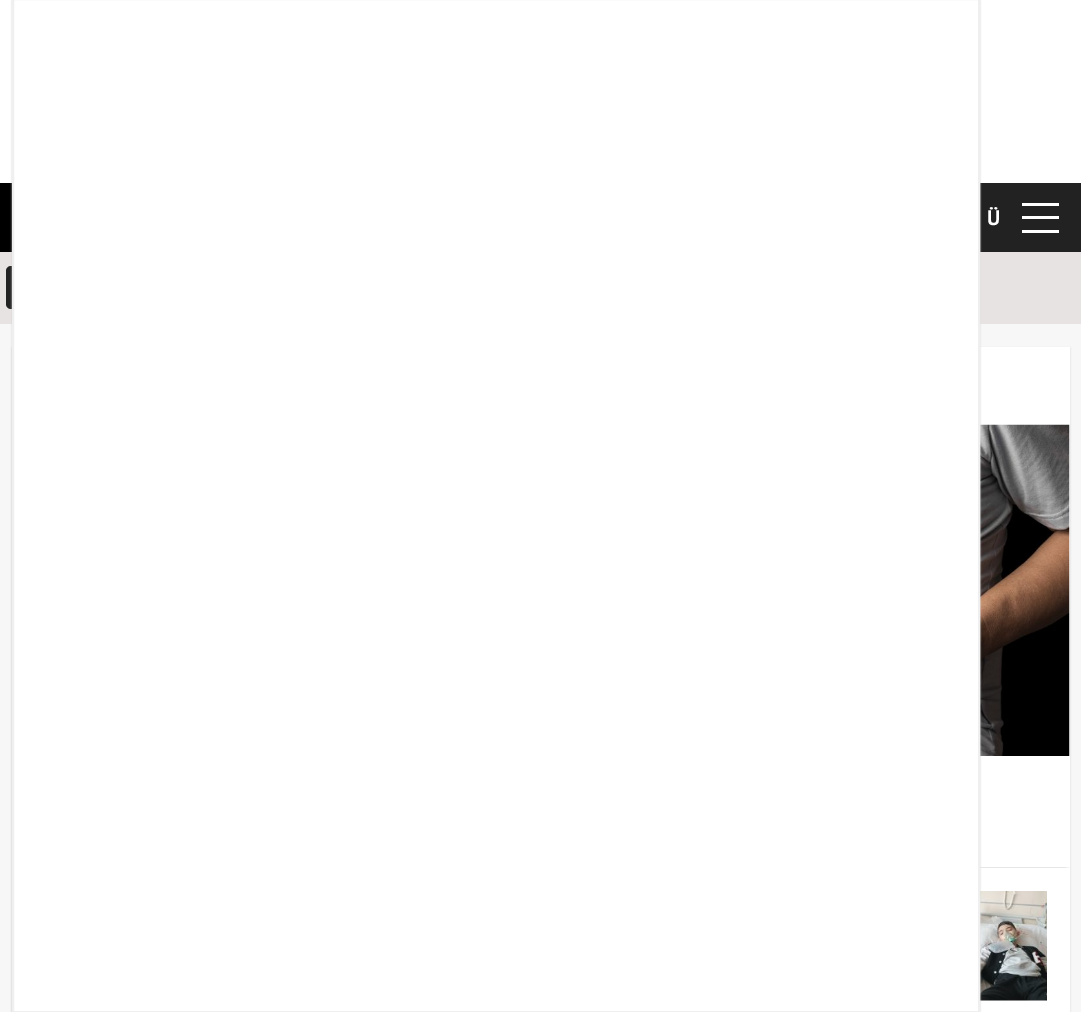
%!PS-Adobe-3.0
%%BoundingBox: 0 0 1081 1012
%%LanguageLevel: 3
%%Pages: 1
%%EndComments
%%BeginProlog
/setalpha { dup .setfillconstantalpha .setstrokeconstantalpha } def
/rrect { 5 dict begin { /r /h /w /y /x } { exch def } forall
  x r add y moveto x w add y 2 copy h add r arct x w add y h add x 1 index r arct
  x y h add x y r arct x y 2 copy exch w add exch r arct closepath end } def
/softshadow { 12 dict begin { /a /b /q /h /w /y /x } { exch def } forall gsave /was 0 def
  9 -2 -9 { dup b mul 4 div /e exch def 1 sub .425 mul 2.718 exch exp 1 add a .99 .min exch div /now exch def
    1 1 now sub 1 was sub div sub setalpha /was now def
    w h .min e 2 mul add 0 gt { x e sub y e sub w e 2 mul add h e 2 mul add
      q e add b .6 mul add w h .min 2 div e add .min 0 .max rrect fill } if } for grestore end } def
/drawimage { 5 dict begin { /h /w /y /x /name } { exch def } forall
  gsave x y translate w h scale
  w h 8 [w 0 0 h 0 0] name (r) file false 3 colorimage grestore end } def
%%EndProlog
%%BeginSetup
<< /PageSize [1081 1012] /PageUsesTransparency true >> setpagedevice
%%EndSetup
%%Page: 1 1
0 .pushpdf14devicefilter
0 1012 translate 1 -1 scale
4 setmiterlimit
0.969 setgray
0 0 1081 1012 rectfill
0.827 setgray
642 348 428 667 0 1 1 softshadow
1 setgray
980 347 90 665 rectfill
(images/1.raw) 980 424 90 332 drawimage
0.902 setgray
newpath 642 867 moveto 1070 867 lineto 1064 868 lineto 642 868 lineto closepath fill
(images/2.raw) 980 891 67 110 drawimage
1 setgray
0 0 1081 183 rectfill
0 setgray
0 183 12 69 rectfill
0.133 setgray
980 183 101 69 rectfill
0.91 0.89 0.89 setrgbcolor
0 252 1081 72 rectfill
0.133 setgray
6 266 38 43 5 rrect fill
0.827 setgray
12 -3 968 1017 0 1 1 softshadow
12 348 608 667 0 1 1 softshadow
1 setgray
newpath 13 -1 moveto 979 -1 lineto 979 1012 lineto 13 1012 lineto closepath gsave fill grestore
0.937 setgray
2 setlinewidth
stroke
1 setgray
1022 203 37 3 rectfill
1022 216 37 3 rectfill
1022 230 37 3 rectfill
/PTSans-Bold [21 0 0 -21 0 0] selectfont
987 225 moveto (Ü) show
.poppdf14devicefilter showpage
%%EOF
